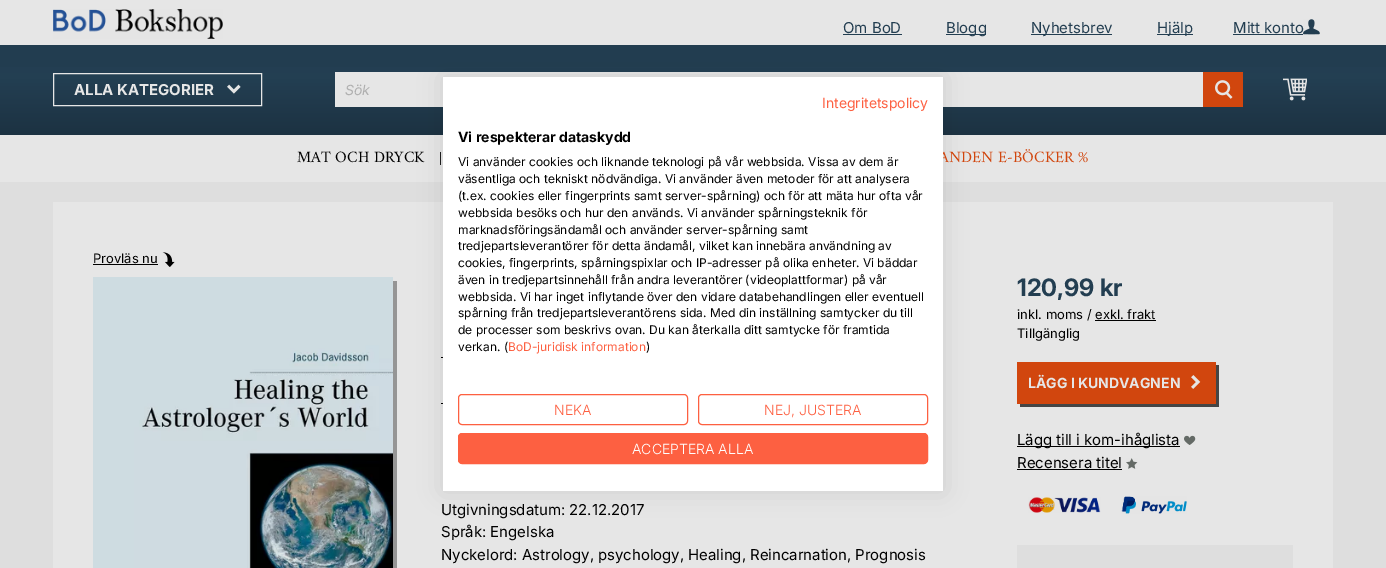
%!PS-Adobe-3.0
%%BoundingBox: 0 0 1386 568
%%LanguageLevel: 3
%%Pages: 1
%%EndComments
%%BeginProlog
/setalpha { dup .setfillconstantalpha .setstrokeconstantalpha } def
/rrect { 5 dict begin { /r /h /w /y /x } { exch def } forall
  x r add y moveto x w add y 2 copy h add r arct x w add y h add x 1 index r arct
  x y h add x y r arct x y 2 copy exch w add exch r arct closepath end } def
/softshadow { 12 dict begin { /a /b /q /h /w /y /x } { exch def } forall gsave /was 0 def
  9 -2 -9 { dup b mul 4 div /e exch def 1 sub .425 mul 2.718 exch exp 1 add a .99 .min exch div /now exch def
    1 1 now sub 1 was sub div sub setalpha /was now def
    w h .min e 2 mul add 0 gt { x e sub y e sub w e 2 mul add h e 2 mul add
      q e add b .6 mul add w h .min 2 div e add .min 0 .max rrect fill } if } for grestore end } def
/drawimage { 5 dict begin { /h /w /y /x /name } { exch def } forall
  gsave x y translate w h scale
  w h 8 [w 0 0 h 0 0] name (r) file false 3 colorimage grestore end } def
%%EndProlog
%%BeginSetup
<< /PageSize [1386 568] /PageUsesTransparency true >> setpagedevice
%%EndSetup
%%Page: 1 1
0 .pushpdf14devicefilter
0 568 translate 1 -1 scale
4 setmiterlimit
0.871 setgray
0 0 1386 568 rectfill
0.902 setgray
0 0 1386 182 rectfill
(images/1.raw) 53 9 170 30 drawimage
0.137 0.243 0.318 setrgbcolor
843 34 59 1 rectfill
946 34 40 1 rectfill
1031 34 81 1 rectfill
1157 34 36 1 rectfill
1233 34 70 1 rectfill
(images/2.raw) 1303 19 17 16 drawimage
gsave newpath 0 45 moveto 1386 45 lineto 1386 135 lineto 0 135 lineto closepath clip newpath
<< /ShadingType 2 /ColorSpace /DeviceRGB /Coords [693 45 693 135] /Extend [true true] /Function << /FunctionType 3 /Domain [0 1] /Functions [<< /FunctionType 2 /Domain [0 1] /C0 [0.133 0.239 0.314] /C1 [0.137 0.247 0.322] /N 1 >> << /FunctionType 2 /Domain [0 1] /C0 [0.137 0.247 0.322] /C1 [0.11 0.196 0.259] /N 1 >>] /Bounds [0.37] /Encode [0 1 0 1] >> >> shfill grestore
0.902 setgray
53.5 73.5 208 32 rectstroke
(images/3.raw) 227 84 14 10 drawimage
335 72 868 35 rectfill
0.82 0.275 0.055 setrgbcolor
1203 72 40 35 rectfill
(images/4.raw) 1215 80 18 19 drawimage
(images/5.raw) 1283 78 24 23 drawimage
0.122 setgray
440 152 1 13 rectfill
0.902 setgray
53 202 1280 366 rectfill
0 setgray
93 264 65 1 rectfill
(images/6.raw) 162 252 13 15 drawimage
(images/7.raw) 93 277 300 291 drawimage
0.584 setgray
newpath 97 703 moveto 97 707 lineto 397 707 lineto 397 281 lineto 393 281 lineto 393 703 lineto closepath fill
0 setgray
1095 320 61 1 rectfill
0.271 setgray
newpath 1020 404 moveto 1020 407 lineto 1219 407 lineto 1219 365 lineto 1216 365 lineto 1216 404 lineto closepath fill
0.82 0.275 0.055 setrgbcolor
1017 362 199 42 rectfill
(images/8.raw) 1191 375 10 14 drawimage
0 setgray
1017 446 163 1 rectfill
(images/9.raw) 1184 435 12 10 drawimage
1017 469 105 1 rectfill
(images/10.raw) 1126 458 12 11 drawimage
(images/11.raw) 1028 497 73 16 drawimage
(images/12.raw) 1121 496 66 18 drawimage
0.871 setgray
1017 545 276 23 rectfill
0 setgray
441 357 2 1 rectfill
441 403 2 1 rectfill
443 77 500 414 0 12 0.1 softshadow
/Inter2-Regular [15 0 0 -15 0 0] selectfont
0.137 0.243 0.318 setrgbcolor
843 33 moveto (Om BoD) show
946 33 moveto (Blogg) show
1031 33 moveto (Nyhetsbrev) show
1157 33 moveto (Hjälp) show
1233 33 moveto (Mitt konto) show
/Inter2-Bold [15 0 0 -15 0 0] selectfont
0.902 setgray
74 95 moveto (ALLA KATEGORIER) show
/Inter-Italic [14 0 0 -14 0 0] selectfont
0.686 setgray
345 95 moveto (Sök) show
/Amiri-Regular [16 0 0 -16 0 0] selectfont
0 setgray
297 162 moveto (MAT OCH DRYCK) show
0.82 0.275 0.055 setrgbcolor
939 162 moveto (ANDEN E-BÖCKER %) show
/Inter-Regular [13 0 0 -13 0 0] selectfont
0 setgray
93 263 moveto (Provläs nu) show
/Inter-Bold [24 0 0 -24 0 0] selectfont
0.137 0.243 0.318 setrgbcolor
1017 296 moveto (120,99 kr) show
/Inter-Regular [13 0 0 -13 0 0] selectfont
0 setgray
1017 319 moveto (inkl. moms / exkl. frakt) show
1017 338 moveto (Tillgänglig) show
/Inter2-Bold [14 0 0 -14 0 0] selectfont
0.902 setgray
1028 388 moveto (LÄGG I KUNDVAGNEN) show
/Inter2-Regular [15 0 0 -15 0 0] selectfont
0 setgray
1017 445 moveto (Lägg till i kom-ihåglista) show
1017 468 moveto (Recensera titel) show
441 515 moveto (Utgivningsdatum: 22.12.2017) show
441 537 moveto (Språk: Engelska) show
441 560 moveto (Nyckelord: Astrology, psychology, Healing, Reincarnation, Prognosis) show
1 setgray
443 77 500 414 rectfill
/Inter-Regular [14 0 0 -14 0 0] selectfont
0.992 0.376 0.255 setrgbcolor
822 108 moveto (Integritetspolicy) show
/Inter2-Bold [14 0 0 -14 0 0] selectfont
0 setgray
458 142 moveto (Vi respekterar dataskydd) show
/Inter-Regular [12 0 0 -12 0 0] selectfont
458 166 moveto (Vi använder cookies och liknande teknologi på vår webbsida. Vissa av dem är) show
458 183 moveto (väsentliga och tekniskt nödvändiga. Vi använder även metoder för att analysera) show
458 200 moveto (\(t.ex. cookies eller fingerprints samt server-spårning\) och för att mäta hur ofta vår) show
458 217 moveto (webbsida besöks och hur den används. Vi använder spårningsteknik för) show
458 234 moveto (marknadsföringsändamål och använder server-spårning samt) show
458 250 moveto (tredjepartsleverantörer för detta ändamål, vilket kan innebära användning av) show
458 267 moveto (cookies, fingerprints, spårningspixlar och IP-adresser på olika enheter. Vi bäddar) show
458 284 moveto (även in tredjepartsinnehåll från andra leverantörer \(videoplattformar\) på vår) show
458 301 moveto (webbsida. Vi har inget inflytande över den vidare databehandlingen eller eventuell) show
458 317 moveto (spårning från tredjepartsleverantörens sida. Med din inställning samtycker du till) show
458 334 moveto (de processer som beskrivs ovan. Du kan återkalla ditt samtycke för framtida) show
458 351 moveto (verkan. \() show
0.992 0.376 0.255 setrgbcolor
508 351 moveto (BoD-juridisk information) show
0 setgray
646 351 moveto (\)) show
0.992 0.376 0.255 setrgbcolor
458.5 394.5 229 30 3.5 rrect stroke
/Inter-Light [14 0 0 -14 0 0] selectfont
554 415 moveto (NEKA) show
698.5 394.5 229 30 3.5 rrect stroke
764 415 moveto (NEJ, JUSTERA) show
458.5 433.5 469 30 3.5 rrect gsave fill grestore
stroke
1 setgray
632 454 moveto (ACCEPTERA ALLA) show
.poppdf14devicefilter showpage
%%EOF
